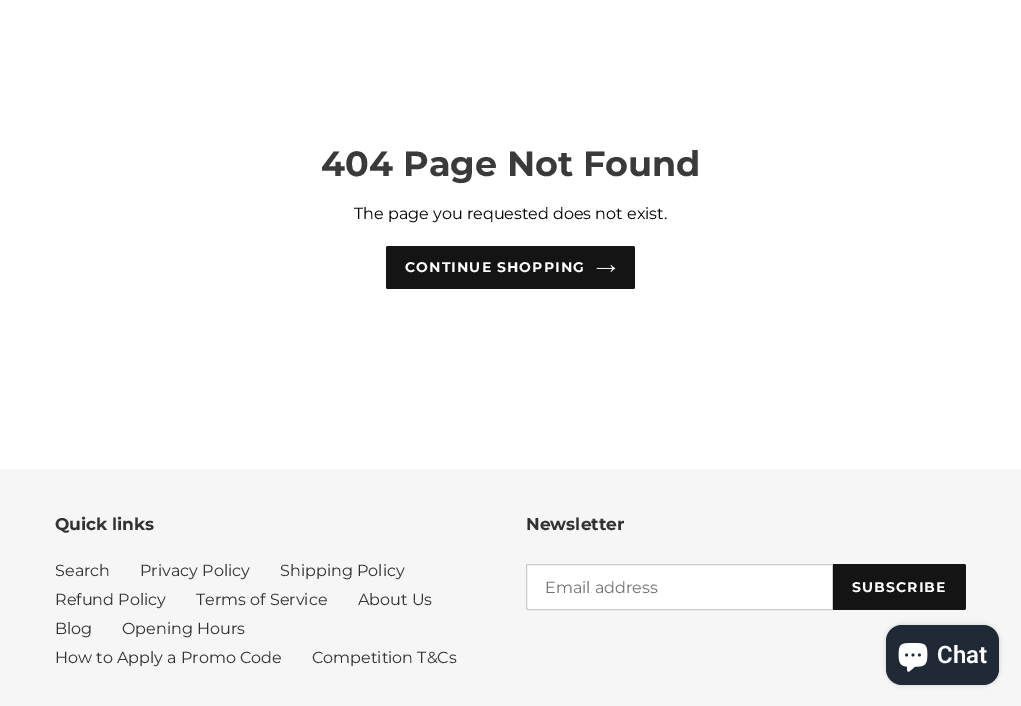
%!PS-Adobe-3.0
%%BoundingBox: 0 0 1021 706
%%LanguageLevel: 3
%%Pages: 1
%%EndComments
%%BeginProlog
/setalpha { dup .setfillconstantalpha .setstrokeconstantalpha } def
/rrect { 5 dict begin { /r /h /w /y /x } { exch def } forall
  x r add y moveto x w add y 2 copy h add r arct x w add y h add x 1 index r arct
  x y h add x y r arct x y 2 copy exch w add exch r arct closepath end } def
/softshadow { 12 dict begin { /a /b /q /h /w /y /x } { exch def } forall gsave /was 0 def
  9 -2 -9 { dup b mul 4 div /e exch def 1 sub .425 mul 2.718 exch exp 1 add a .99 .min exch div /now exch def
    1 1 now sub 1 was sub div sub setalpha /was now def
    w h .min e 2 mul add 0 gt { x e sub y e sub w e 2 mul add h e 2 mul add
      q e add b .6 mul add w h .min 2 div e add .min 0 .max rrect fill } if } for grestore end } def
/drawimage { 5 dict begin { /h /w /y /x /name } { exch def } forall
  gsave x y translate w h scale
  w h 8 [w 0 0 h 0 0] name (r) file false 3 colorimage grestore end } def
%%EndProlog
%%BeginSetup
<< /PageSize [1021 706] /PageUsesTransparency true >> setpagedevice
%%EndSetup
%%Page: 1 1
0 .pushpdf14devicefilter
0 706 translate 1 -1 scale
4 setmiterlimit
1 setgray
0 0 1021 706 rectfill
0.082 0.078 0.078 setrgbcolor
386 246 249 43 2 rrect fill
(images/1.raw) 596 264 20 8 drawimage
0.965 setgray
0 469 1021 237 rectfill
1 setgray
newpath 528 564.5 moveto 832.5 564.5 lineto 832.5 609.5 lineto 528 609.5 lineto 527 609.5 526.5 609 526.5 608 curveto 526.5 566 lineto 526.5 565 527 564.5 528 564.5 curveto closepath gsave fill grestore
0.8 setgray
stroke
0.082 0.078 0.078 setrgbcolor
newpath 833 564 moveto 964 564 lineto 965 564 966 565 966 566 curveto 966 608 lineto 966 609 965 610 964 610 curveto 833 610 lineto closepath fill
0 setgray
886 625 113 60 16 2.5 0.15 softshadow
0.125 0.165 0.212 setrgbcolor
886 625 113 60 16 rrect fill
(images/2.raw) 898 643 30 29 drawimage
/Montserrat-Bold [35 0 0 -35 0 0] selectfont
0.227 setgray
321 176 moveto (404 Page Not Found) show
/Montserrat-Regular [16 0 0 -16 0 0] selectfont
0 setgray
354 219 moveto (The page you requested does not exist.) show
/Montserrat-Bold [14 0 0 -14 0 0] selectfont
1 setgray
405 272 moveto 1.1 0 (CONTINUE SHOPPING) ashow
/Montserrat-Bold [17 0 0 -17 0 0] selectfont
0.2 0.196 0.196 setrgbcolor
55 530 moveto (Quick links) show
/Montserrat-Regular [16 0 0 -16 0 0] selectfont
55 576 moveto (Search) show
140 576 moveto (Privacy Policy) show
280 576 moveto (Shipping Policy) show
55 605 moveto (Refund Policy) show
196 605 moveto (Terms of Service) show
358 605 moveto (About Us) show
55 634 moveto (Blog) show
122 634 moveto (Opening Hours) show
55 663 moveto (How to Apply a Promo Code) show
312 663 moveto (Competition T&Cs) show
/Montserrat-Bold [17 0 0 -17 0 0] selectfont
526 530 moveto (Newsletter) show
/Montserrat-Regular [16 0 0 -16 0 0] selectfont
0.451 0.447 0.447 setrgbcolor
545 593 moveto (Email address) show
/Montserrat-Bold [14 0 0 -14 0 0] selectfont
1 setgray
852 592 moveto 1.1 0 (SUBSCRIBE) ashow
/Roboto-SemiBold [24 0 0 -24 0 0] selectfont
937 663 moveto (Chat) show
.poppdf14devicefilter showpage
%%EOF
